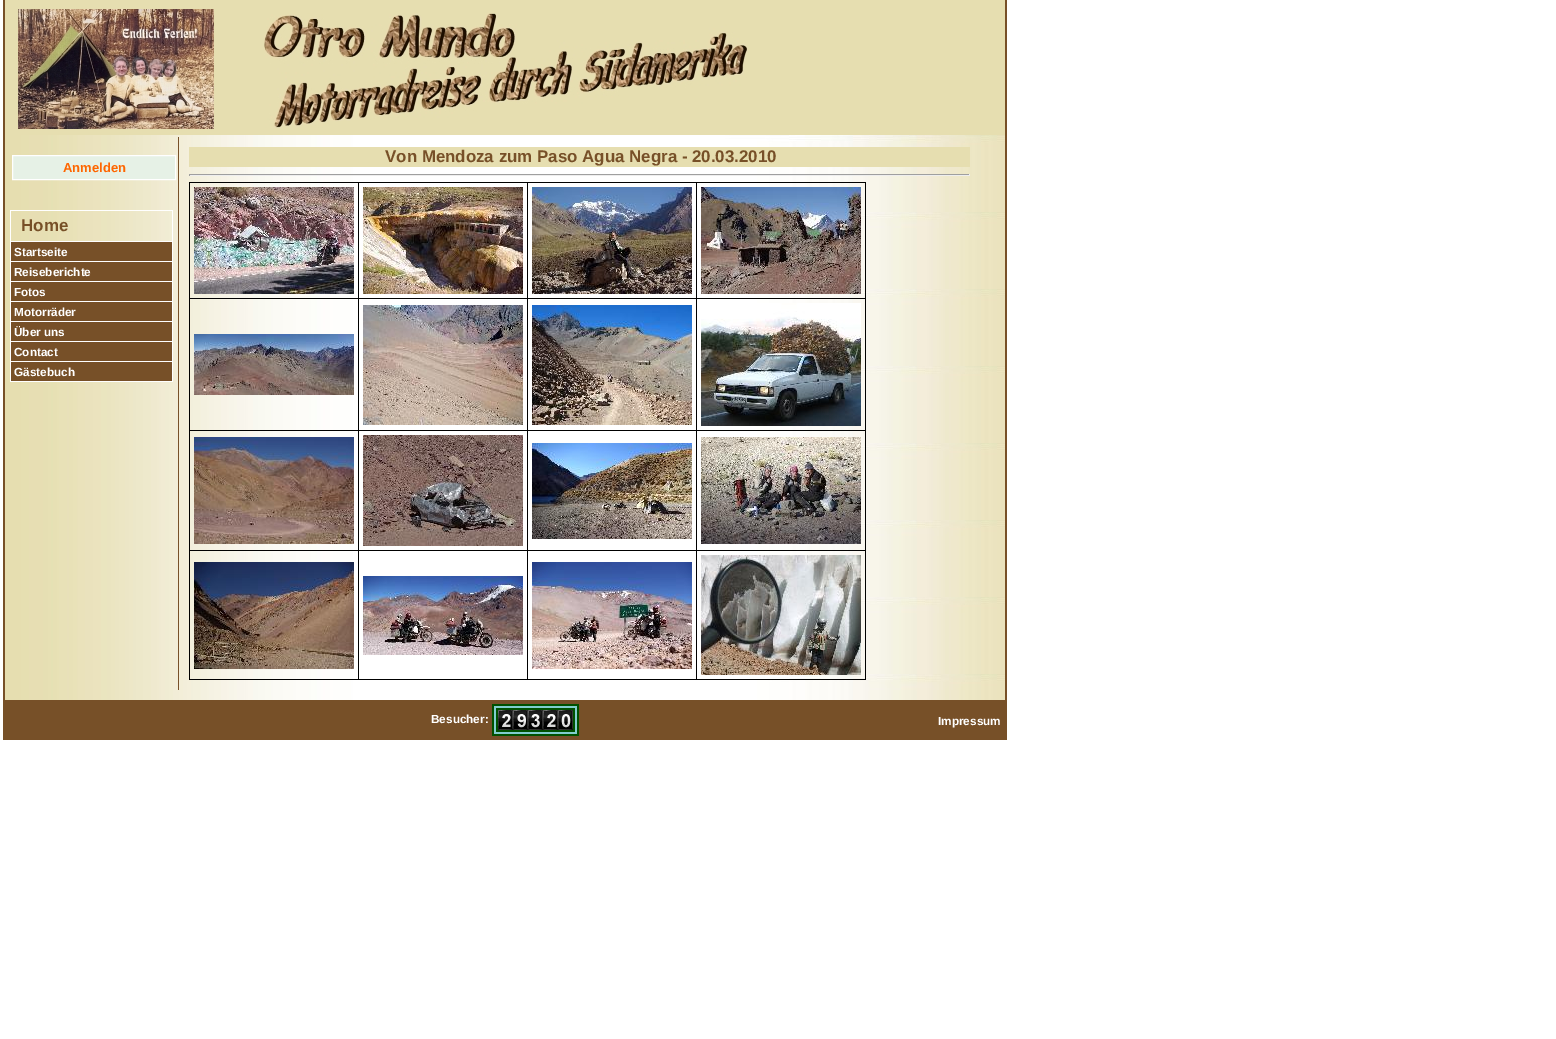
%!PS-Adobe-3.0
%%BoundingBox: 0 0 1556 1039
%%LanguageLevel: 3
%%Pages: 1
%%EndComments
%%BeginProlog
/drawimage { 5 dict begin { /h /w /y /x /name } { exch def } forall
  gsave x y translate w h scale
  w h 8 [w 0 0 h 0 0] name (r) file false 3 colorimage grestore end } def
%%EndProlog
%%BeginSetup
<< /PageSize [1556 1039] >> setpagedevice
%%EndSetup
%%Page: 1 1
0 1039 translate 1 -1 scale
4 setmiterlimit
1 setgray
0 0 1556 1039 rectfill
0.902 0.871 0.69 setrgbcolor
5 0 1000 135 rectfill
0.467 0.314 0.157 setrgbcolor
1005 0 2 700 rectfill
3 0 2 700 rectfill
(images/1.raw) 18 9 196 120 drawimage
(images/2.raw) 264 13 484 115 drawimage
(images/3.raw) 5 135 1000 565 drawimage
178 137 1 553 rectfill
0.902 0.871 0.69 setrgbcolor
189 147 781 20 rectfill
0.624 setgray
189 174 781 1 rectfill
0.933 setgray
969 174 1 2 rectfill
189 175 781 1 rectfill
0.624 setgray
189 174 1 2 rectfill
0 setgray
696 182 170 1 rectfill
696 298 170 1 rectfill
696 430 170 1 rectfill
696 550 170 1 rectfill
865 550 1 130 rectfill
696 679 170 1 rectfill
696 550 1 130 rectfill
527 550 170 1 rectfill
696 430 1 121 rectfill
527 430 170 1 rectfill
696 298 1 133 rectfill
527 298 170 1 rectfill
696 182 1 117 rectfill
527 182 170 1 rectfill
527 679 170 1 rectfill
527 550 1 130 rectfill
358 550 170 1 rectfill
527 430 1 121 rectfill
358 430 170 1 rectfill
527 298 1 133 rectfill
358 298 170 1 rectfill
527 182 1 117 rectfill
358 182 170 1 rectfill
358 679 170 1 rectfill
358 550 1 130 rectfill
189 550 170 1 rectfill
358 430 1 121 rectfill
189 430 170 1 rectfill
358 298 1 133 rectfill
189 298 170 1 rectfill
358 182 1 117 rectfill
189 182 170 1 rectfill
189 679 170 1 rectfill
189 550 1 130 rectfill
189 430 1 121 rectfill
189 298 1 133 rectfill
189 182 1 117 rectfill
(images/4.raw) 194 187 160 107 drawimage
(images/5.raw) 363 187 160 107 drawimage
(images/6.raw) 532 187 160 107 drawimage
865 430 1 121 rectfill
865 298 1 133 rectfill
865 182 1 117 rectfill
(images/7.raw) 701 187 160 107 drawimage
(images/8.raw) 194 334 160 61 drawimage
(images/9.raw) 363 305 160 120 drawimage
(images/10.raw) 532 305 160 120 drawimage
(images/11.raw) 701 303 160 123 drawimage
(images/12.raw) 194 437 160 107 drawimage
(images/13.raw) 363 435 160 111 drawimage
(images/14.raw) 532 443 160 96 drawimage
(images/15.raw) 701 437 160 107 drawimage
(images/16.raw) 194 562 160 107 drawimage
(images/17.raw) 363 576 160 79 drawimage
(images/18.raw) 532 562 160 107 drawimage
(images/19.raw) 701 555 160 120 drawimage
0.902 0.945 0.902 setrgbcolor
newpath 12.5 155.5 moveto 175.5 155.5 lineto 175.5 179.5 lineto 12.5 179.5 lineto closepath gsave fill grestore
1 setgray
stroke
10 210 163 1 rectfill
10 241 163 1 rectfill
10 261 163 1 rectfill
10 281 163 1 rectfill
10 301 163 1 rectfill
10 321 163 1 rectfill
10 341 163 1 rectfill
10 361 163 1 rectfill
172 361 1 21 rectfill
172 341 1 21 rectfill
172 321 1 21 rectfill
172 301 1 21 rectfill
172 281 1 21 rectfill
172 261 1 21 rectfill
172 241 1 21 rectfill
172 210 1 32 rectfill
10 381 163 1 rectfill
10 361 1 21 rectfill
10 341 1 21 rectfill
10 321 1 21 rectfill
10 301 1 21 rectfill
10 281 1 21 rectfill
10 261 1 21 rectfill
10 241 1 21 rectfill
10 210 1 32 rectfill
0.467 0.314 0.157 setrgbcolor
11 242 161 19 rectfill
11 262 161 19 rectfill
11 282 161 19 rectfill
11 302 161 19 rectfill
11 322 161 19 rectfill
11 342 161 19 rectfill
11 362 161 19 rectfill
3 700 1004 40 rectfill
(images/20.raw) 492 704 87 32 drawimage
/LiberationSans-Bold [16.9 0 0 -16.9 0 0] selectfont
385 162 moveto (Von Mendoza zum Paso Agua Negra - 20.03.2010) show
/LiberationSans-Bold [13 0 0 -13 0 0] selectfont
1 0.4 0 setrgbcolor
63 172 moveto (Anmelden) show
/LiberationSans-Bold [17 0 0 -17 0 0] selectfont
0.467 0.314 0.157 setrgbcolor
21 231 moveto (Home) show
/LiberationSans-Bold [11.75 0 0 -11.75 0 0] selectfont
1 setgray
14 256 moveto (Startseite) show
14 276 moveto (Reiseberichte) show
14 296 moveto (Fotos) show
14 316 moveto (Motorräder) show
14 336 moveto (Über uns) show
14 356 moveto (Contact) show
14 376 moveto (Gästebuch) show
431 723 moveto (Besucher:) show
938 725 moveto (Impressum) show
showpage
%%EOF
